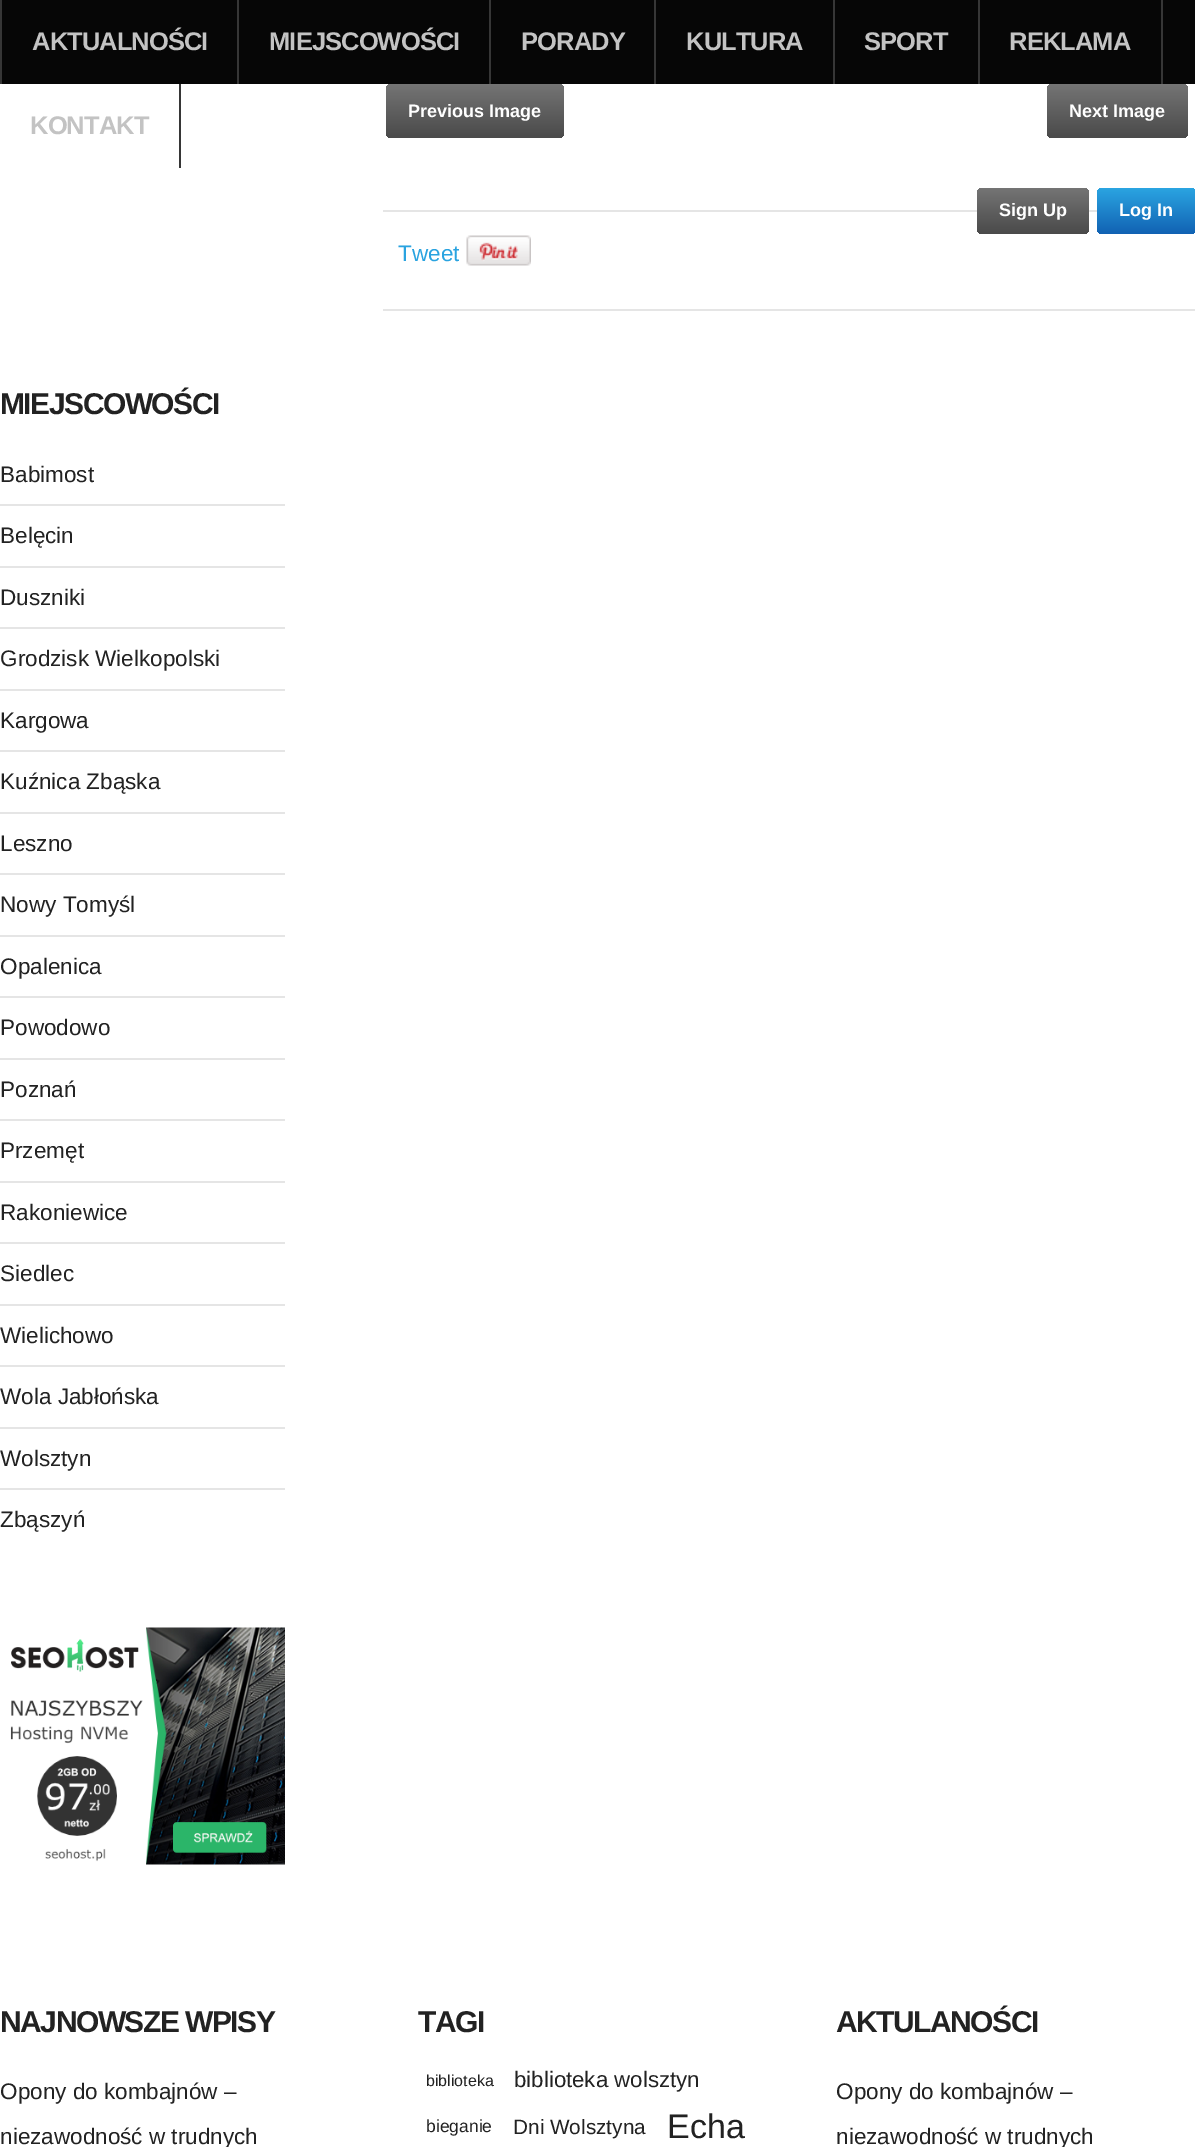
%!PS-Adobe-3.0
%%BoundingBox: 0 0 1195 2147
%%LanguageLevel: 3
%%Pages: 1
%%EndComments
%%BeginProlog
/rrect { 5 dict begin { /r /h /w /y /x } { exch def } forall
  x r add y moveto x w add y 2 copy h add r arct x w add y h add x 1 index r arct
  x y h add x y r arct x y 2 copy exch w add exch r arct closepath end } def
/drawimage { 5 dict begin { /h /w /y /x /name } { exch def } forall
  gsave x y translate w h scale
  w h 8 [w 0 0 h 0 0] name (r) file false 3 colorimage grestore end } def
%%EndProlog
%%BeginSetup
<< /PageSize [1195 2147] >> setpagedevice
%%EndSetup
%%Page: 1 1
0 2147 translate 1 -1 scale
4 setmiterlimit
1 setgray
0 0 1195 2147 rectfill
0.024 setgray
2 0 1193 84 rectfill
0.212 setgray
237 0 2 84 rectfill
0 0 2 84 rectfill
489 0 2 84 rectfill
654 0 2 84 rectfill
833 0 2 84 rectfill
978 0 2 84 rectfill
1161 0 2 84 rectfill
179 84 2 84 rectfill
0.898 setgray
383 210 714 2 rectfill
gsave 977 188 112 46 5 rrect clip newpath
<< /ShadingType 2 /ColorSpace /DeviceRGB /Coords [977 234 977 188] /Extend [true true] /Function << /FunctionType 3 /Domain [0 1] /Functions [<< /FunctionType 2 /Domain [0 1] /C0 [0.29 0.29 0.29] /C1 [0.455 0.455 0.455] /N 1 >> << /FunctionType 2 /Domain [0 1] /C0 [0.455 0.455 0.455] /C1 [0.455 0.455 0.455] /N 1 >>] /Bounds [0.99] /Encode [0 1 0 1] >> >> shfill grestore
gsave 1097 188 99 46 5 rrect clip newpath
<< /ShadingType 2 /ColorSpace /DeviceRGB /Coords [1097 234 1097 188] /Extend [true true] /Function << /FunctionType 3 /Domain [0 1] /Functions [<< /FunctionType 2 /Domain [0 1] /C0 [0.067 0.384 0.702] /C1 [0.165 0.643 0.882] /N 1 >> << /FunctionType 2 /Domain [0 1] /C0 [0.165 0.643 0.882] /C1 [0.165 0.643 0.882] /N 1 >>] /Bounds [0.99] /Encode [0 1 0 1] >> >> shfill grestore
gsave 386 84 178 54 5 rrect clip newpath
<< /ShadingType 2 /ColorSpace /DeviceRGB /Coords [386 138 386 84] /Extend [true true] /Function << /FunctionType 3 /Domain [0 1] /Functions [<< /FunctionType 2 /Domain [0 1] /C0 [0.29 0.29 0.29] /C1 [0.455 0.455 0.455] /N 1 >> << /FunctionType 2 /Domain [0 1] /C0 [0.455 0.455 0.455] /C1 [0.455 0.455 0.455] /N 1 >>] /Bounds [0.99] /Encode [0 1 0 1] >> >> shfill grestore
gsave 1047 84 141 54 5 rrect clip newpath
<< /ShadingType 2 /ColorSpace /DeviceRGB /Coords [1047 138 1047 84] /Extend [true true] /Function << /FunctionType 3 /Domain [0 1] /Functions [<< /FunctionType 2 /Domain [0 1] /C0 [0.29 0.29 0.29] /C1 [0.455 0.455 0.455] /N 1 >> << /FunctionType 2 /Domain [0 1] /C0 [0.455 0.455 0.455] /C1 [0.455 0.455 0.455] /N 1 >>] /Bounds [0.99] /Encode [0 1 0 1] >> >> shfill grestore
383 309 812 2 rectfill
(images/1.raw) 466 235 65 31 drawimage
0 504 285 2 rectfill
0 566 285 2 rectfill
0 627 285 2 rectfill
0 689 285 2 rectfill
0 750 285 2 rectfill
0 812 285 2 rectfill
0 873 285 2 rectfill
0 935 285 2 rectfill
0 996 285 2 rectfill
0 1058 285 2 rectfill
0 1119 285 2 rectfill
0 1181 285 2 rectfill
0 1242 285 2 rectfill
0 1304 285 2 rectfill
0 1365 285 2 rectfill
0 1427 285 2 rectfill
0 1488 285 2 rectfill
(images/2.raw) 10 1627 275 238 drawimage
/LiberationSans-Bold [25.5 0 0 -25.5 0 0] selectfont
0.765 setgray
32 50 moveto -0.9 0 (AKTUALNOŚCI) ashow
269 50 moveto -0.9 0 (MIEJSCOWOŚCI) ashow
521 50 moveto -0.9 0 (PORADY) ashow
686 50 moveto -0.9 0 (KULTURA) ashow
864 50 moveto -0.9 0 (SPORT) ashow
1009 50 moveto -0.9 0 (REKLAMA) ashow
30 134 moveto -0.9 0 (KONTAKT) ashow
/LiberationSans-Bold [18 0 0 -18 0 0] selectfont
1 setgray
999 216 moveto (Sign Up) show
1119 216 moveto (Log In) show
408 117 moveto (Previous Image) show
1069 117 moveto (Next Image) show
/LiberationSans-Regular [22.5 0 0 -22.5 0 0] selectfont
0.161 0.639 0.878 setrgbcolor
398 261 moveto (Tweet) show
/LiberationSans-Bold [30 0 0 -30 0 0] selectfont
0.133 setgray
0 414 moveto -1.5 0 (MIEJSCOWOŚCI) ashow
/LiberationSans-Regular [22.5 0 0 -22.5 0 0] selectfont
0 482 moveto (Babimost) show
0 543 moveto (Belęcin) show
0 605 moveto (Duszniki) show
0 666 moveto (Grodzisk Wielkopolski) show
0 728 moveto (Kargowa) show
0 789 moveto (Kuźnica Zbąska) show
0 851 moveto (Leszno) show
0 912 moveto (Nowy Tomyśl) show
0 974 moveto (Opalenica) show
0 1035 moveto (Powodowo) show
0 1097 moveto (Poznań) show
0 1158 moveto (Przemęt) show
0 1220 moveto (Rakoniewice) show
0 1281 moveto (Siedlec) show
0 1343 moveto (Wielichowo) show
0 1404 moveto (Wola Jabłońska) show
0 1466 moveto (Wolsztyn) show
0 1527 moveto (Zbąszyń) show
/LiberationSans-Bold [30 0 0 -30 0 0] selectfont
0 2032 moveto -1.5 0 (NAJNOWSZE WPISY) ashow
/LiberationSans-Regular [22.5 0 0 -22.5 0 0] selectfont
0 2099 moveto (Opony do kombajnów –) show
0 2144 moveto (niezawodność w trudnych) show
/LiberationSans-Bold [30 0 0 -30 0 0] selectfont
418 2032 moveto -1.5 0 (TAGI) ashow
/LiberationSans-Regular [16 0 0 -16 0 0] selectfont
426 2086 moveto (biblioteka) show
/LiberationSans-Regular [22.25 0 0 -22.25 0 0] selectfont
514 2087 moveto (biblioteka wolsztyn) show
/LiberationSans-Regular [17.5 0 0 -17.5 0 0] selectfont
426 2132 moveto (bieganie) show
/LiberationSans-Regular [20.75 0 0 -20.75 0 0] selectfont
513 2134 moveto (Dni Wolsztyna) show
/LiberationSans-Regular [34 0 0 -34 0 0] selectfont
667 2138 moveto (Echa) show
/LiberationSans-Bold [30 0 0 -30 0 0] selectfont
836 2032 moveto -1.5 0 (AKTULANOŚCI) ashow
/LiberationSans-Regular [22.5 0 0 -22.5 0 0] selectfont
836 2099 moveto (Opony do kombajnów –) show
836 2144 moveto (niezawodność w trudnych) show
showpage
%%EOF
